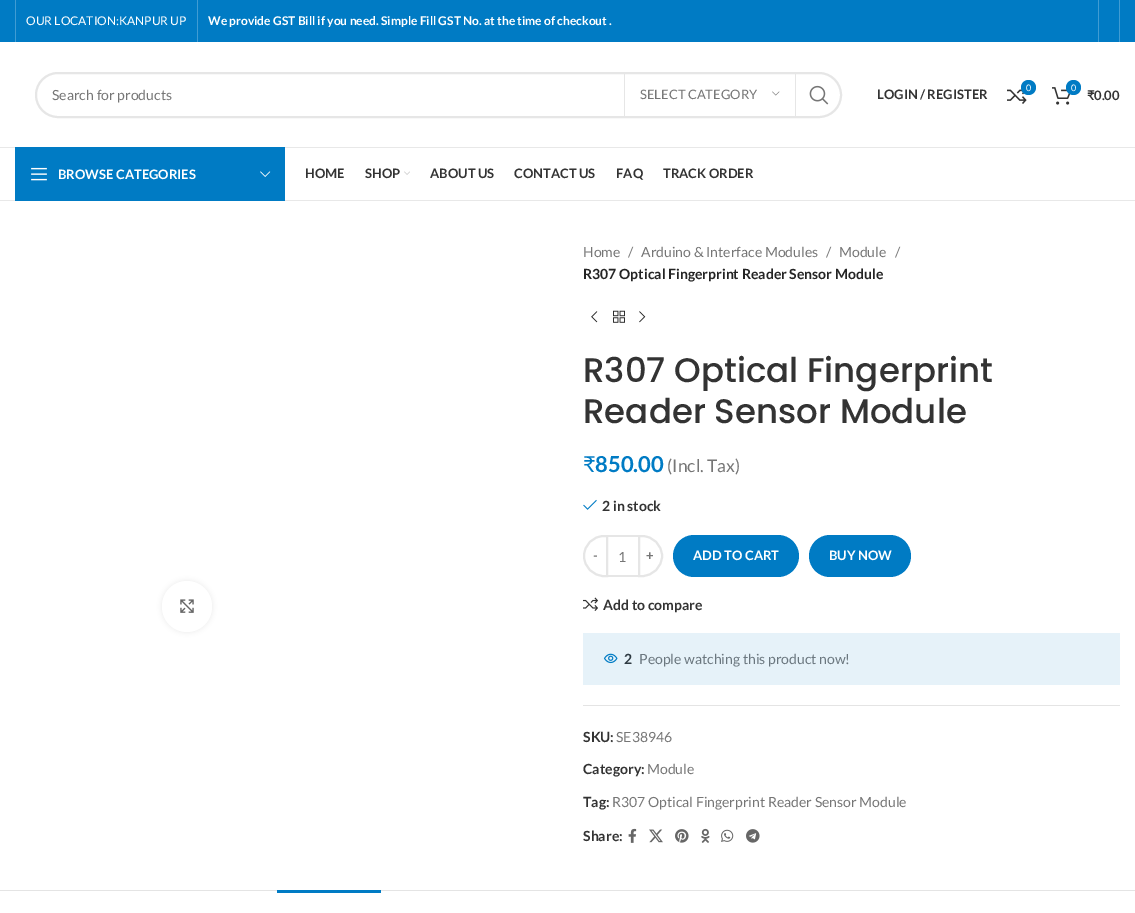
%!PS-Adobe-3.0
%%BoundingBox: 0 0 1135 913
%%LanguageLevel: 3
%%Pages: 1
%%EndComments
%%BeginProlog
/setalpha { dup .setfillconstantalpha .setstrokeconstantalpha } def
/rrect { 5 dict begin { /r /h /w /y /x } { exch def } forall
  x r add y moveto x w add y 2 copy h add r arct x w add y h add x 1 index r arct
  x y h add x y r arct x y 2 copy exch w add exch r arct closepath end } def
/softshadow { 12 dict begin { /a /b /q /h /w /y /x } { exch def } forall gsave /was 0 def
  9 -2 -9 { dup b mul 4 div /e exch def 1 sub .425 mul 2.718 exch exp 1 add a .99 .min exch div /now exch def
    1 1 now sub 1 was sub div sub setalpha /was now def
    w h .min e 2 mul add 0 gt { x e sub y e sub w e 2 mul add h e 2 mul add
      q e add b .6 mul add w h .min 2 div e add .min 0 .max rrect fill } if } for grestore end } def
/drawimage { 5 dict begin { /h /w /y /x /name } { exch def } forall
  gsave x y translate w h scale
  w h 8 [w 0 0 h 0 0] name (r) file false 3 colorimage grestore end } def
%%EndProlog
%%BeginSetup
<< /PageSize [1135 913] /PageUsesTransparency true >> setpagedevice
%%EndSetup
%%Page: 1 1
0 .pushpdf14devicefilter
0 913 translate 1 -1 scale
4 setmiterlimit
1 setgray
0 0 1135 913 rectfill
0.902 0.949 0.976 setrgbcolor
583 633 537 52 rectfill
0 0.482 0.769 setrgbcolor
0 0 1135 42 rectfill
0.251 0.612 0.827 setrgbcolor
15 0 1 42 rectfill
197 0 1 42 rectfill
1098 0 1 42 rectfill
1119 0 1 42 rectfill
0.91 setgray
0 147 1135 1 rectfill
0.902 setgray
2 setlinewidth
36 73 805 44 22 rrect stroke
795 74 1 42 rectfill
624 74 1 42 rectfill
(images/1.raw) 772 91 8 5 drawimage
(images/2.raw) 809 85 20 20 drawimage
(images/3.raw) 1007 89 20 15 drawimage
0 0.482 0.769 setrgbcolor
newpath 1028.5 87.5 7.5 0 360 arc closepath fill
(images/4.raw) 1052 87 19 18 drawimage
newpath 1073.5 87.5 7.5 0 360 arc closepath fill
0.91 setgray
0 200 1135 1 rectfill
0 0.482 0.769 setrgbcolor
15 147 270 54 rectfill
(images/5.raw) 31 167 16 14 drawimage
(images/6.raw) 260 171 11 6 drawimage
(images/7.raw) 404 171 6 4 drawimage
0 setgray
162 581 50 51 25 2.5 0.08 softshadow
1 setgray
162 581 50 51 25 rrect fill
(images/8.raw) 180 599 14 14 drawimage
(images/9.raw) 591 311 7 12 drawimage
(images/10.raw) 613 310 12 13 drawimage
(images/11.raw) 639 311 7 12 drawimage
(images/12.raw) 583 499 14 11 drawimage
0.902 setgray
newpath 604 536 moveto 607 536 lineto 607 576 lineto 604 576 lineto 593 576 584 567 584 556 curveto 584 545 593 536 604 536 curveto closepath stroke
608 535 30 2 rectfill
608 575 30 2 rectfill
newpath 639 536 moveto 642 536 lineto 653 536 662 545 662 556 curveto 662 567 653 576 642 576 curveto 639 576 lineto closepath stroke
0 0.482 0.769 setrgbcolor
673 535 126 42 21 rrect fill
809 535 102 42 21 rrect fill
(images/13.raw) 583 597 15 14 drawimage
(images/14.raw) 603 653 15 11 drawimage
0.894 setgray
583 705 537 1 rectfill
(images/15.raw) 628 828 9 15 drawimage
(images/16.raw) 649 829 14 14 drawimage
(images/17.raw) 675 829 14 14 drawimage
(images/18.raw) 701 828 9 15 drawimage
(images/19.raw) 721 829 13 13 drawimage
(images/20.raw) 746 829 14 14 drawimage
0 890 1135 1 rectfill
0 0.482 0.769 setrgbcolor
277 890 104 3 rectfill
/Lato-Regular [12 0 0 -12 0 0] selectfont
1 setgray
26 25 moveto (OUR LOCATION:KANPUR UP) show
/Lato-Bold [12 0 0 -12 0 0] selectfont
208 25 moveto (We provide GST Bill if you need. Simple Fill GST No. at the time of checkout .) show
/Lato-Regular [14 0 0 -14 0 0] selectfont
0.463 setgray
52 100 moveto (Search for products) show
/Lato-Regular [13 0 0 -13 0 0] selectfont
640 99 moveto (SELECT CATEGORY) show
/Lato-Bold [13 0 0 -13 0 0] selectfont
0.2 setgray
877 99 moveto (LOGIN / REGISTER) show
/Lato-Regular [9 0 0 -9 0 0] selectfont
1 setgray
1026 91 moveto (0) show
1071 91 moveto (0) show
/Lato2-Bold [13 0 0 -13 0 0] selectfont
0.2 setgray
1087 100 moveto (₹) show
/Lato-Bold [13 0 0 -13 0 0] selectfont
1094 100 moveto (0.00) show
1 setgray
58 179 moveto (BROWSE CATEGORIES) show
0.2 setgray
305 178 moveto (HOME) show
365 178 moveto (SHOP) show
430 178 moveto (ABOUT US) show
514 178 moveto (CONTACT US) show
616 178 moveto (FAQ) show
663 178 moveto (TRACK ORDER) show
/Lato-Regular [14 0 0 -14 0 0] selectfont
0.463 setgray
583 257 moveto (Home) show
628 257 moveto (/) show
641 257 moveto (Arduino & Interface Modules) show
826 257 moveto (/) show
839 257 moveto (Module) show
895 257 moveto (/) show
/Lato-Bold [14 0 0 -14 0 0] selectfont
0.141 setgray
583 279 moveto (R307 Optical Fingerprint Reader Sensor Module) show
/Poppins-Medium [34 0 0 -34 0 0] selectfont
0.2 setgray
583 382 moveto (R307 Optical Fingerprint) show
583 423 moveto (Reader Sensor Module) show
/Lato2-Regular [22 0 0 -22 0 0] selectfont
0 0.482 0.769 setrgbcolor
583 472 moveto (₹) show
/Lato-Bold [22 0 0 -22 0 0] selectfont
595 472 moveto (850.00) show
/Lato-Regular [17.5 0 0 -17.5 0 0] selectfont
0.463 setgray
667 472 moveto (\(Incl. Tax\)) show
/Lato-Bold [14 0 0 -14 0 0] selectfont
0.2 setgray
602 511 moveto (2 in stock) show
/Lato-Bold [13 0 0 -13 0 0] selectfont
0.463 setgray
593 560 moveto (-) show
/Lato-Regular [14 0 0 -14 0 0] selectfont
618 562 moveto (1) show
/Lato-Bold [13 0 0 -13 0 0] selectfont
646 560 moveto (+) show
1 setgray
693 560 moveto (ADD TO CART) show
829 560 moveto (BUY NOW) show
/Lato-Bold [14 0 0 -14 0 0] selectfont
0.2 setgray
603 610 moveto (Add to compare) show
0.18 0.227 0.259 setrgbcolor
624 664 moveto (2) show
/Lato-Regular [14 0 0 -14 0 0] selectfont
0.42 0.467 0.498 setrgbcolor
639 664 moveto (People watching this product now!) show
/Lato-Bold [14 0 0 -14 0 0] selectfont
0.2 setgray
583 742 moveto (SKU:) show
/Lato-Regular [14 0 0 -14 0 0] selectfont
0.463 setgray
616 742 moveto (SE38946) show
/Lato-Bold [14 0 0 -14 0 0] selectfont
0.2 setgray
583 774 moveto (Category:) show
/Lato-Regular [14 0 0 -14 0 0] selectfont
0.463 setgray
647 774 moveto (Module) show
/Lato-Bold [14 0 0 -14 0 0] selectfont
0.2 setgray
583 807 moveto (Tag:) show
/Lato-Regular [14 0 0 -14 0 0] selectfont
0.463 setgray
612 807 moveto (R307 Optical Fingerprint Reader Sensor Module) show
/Lato-Bold [14 0 0 -14 0 0] selectfont
0.2 setgray
583 841 moveto (Share:) show
.poppdf14devicefilter showpage
%%EOF
